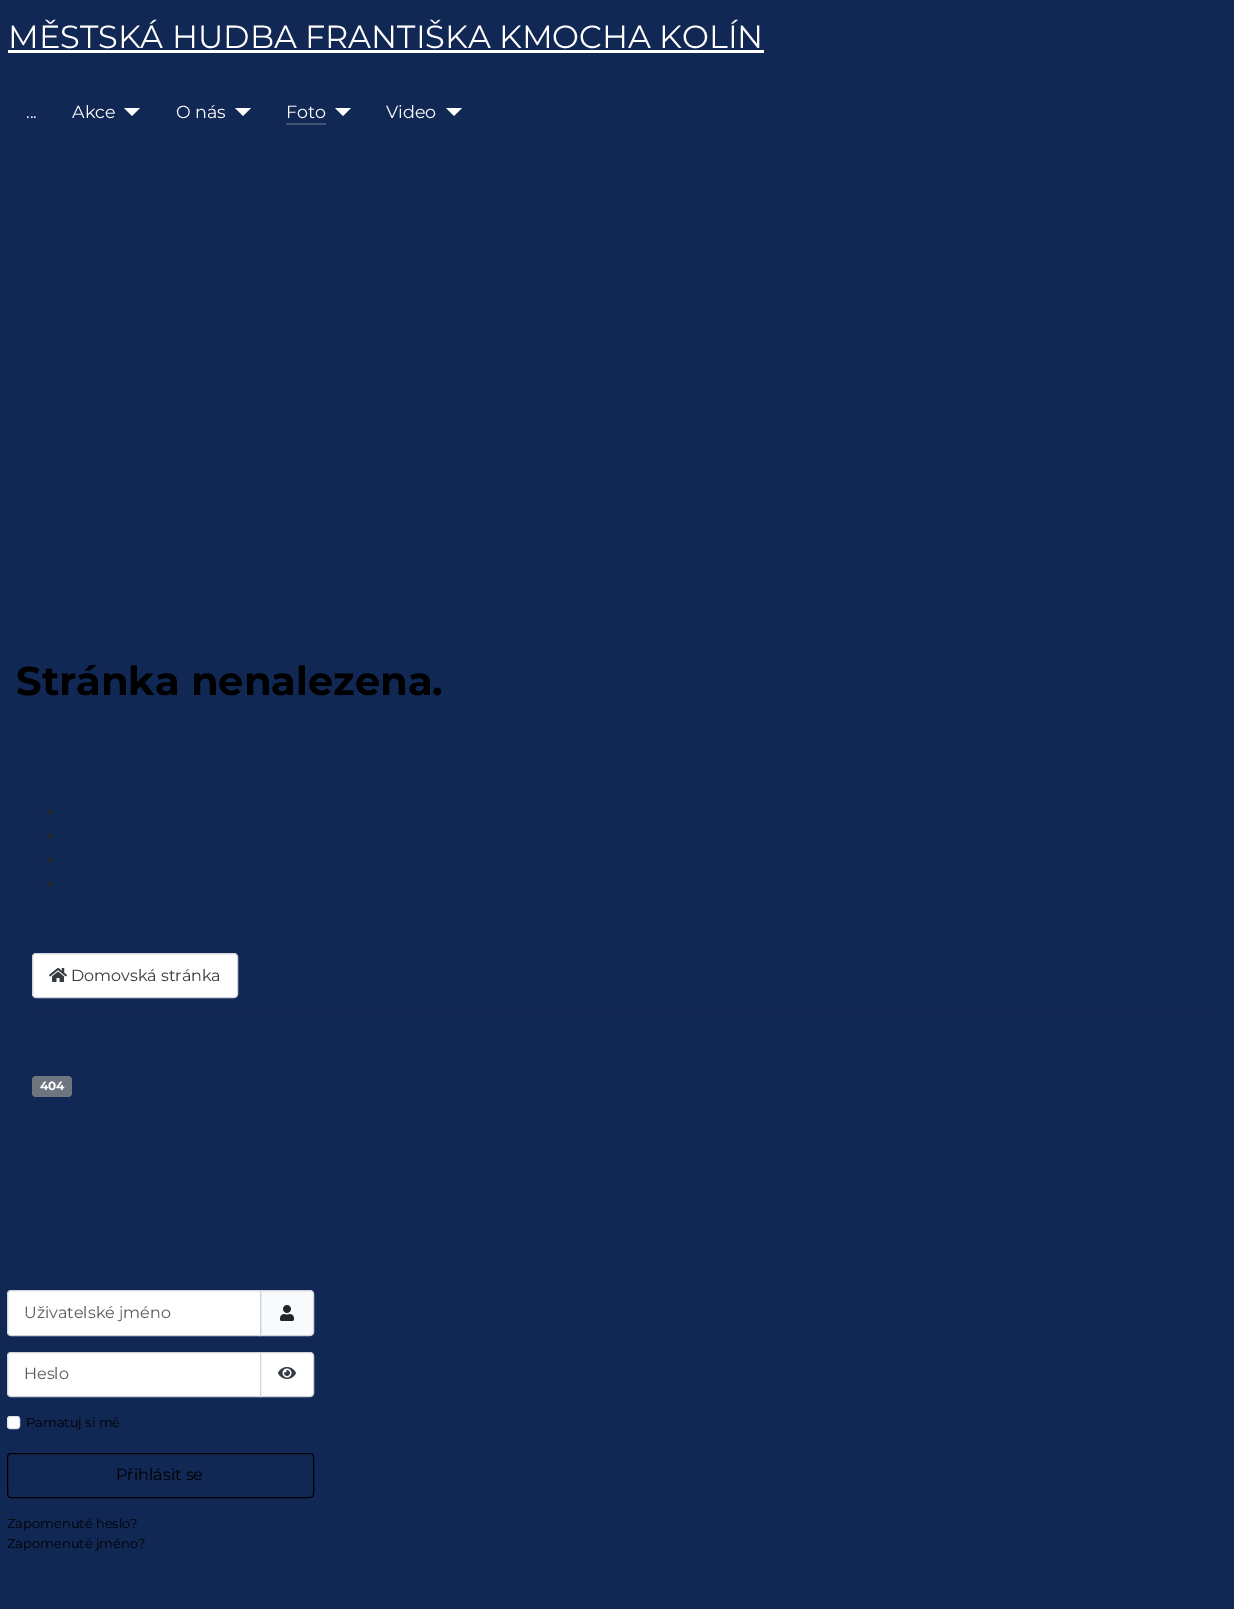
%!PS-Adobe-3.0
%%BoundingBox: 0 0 1234 1609
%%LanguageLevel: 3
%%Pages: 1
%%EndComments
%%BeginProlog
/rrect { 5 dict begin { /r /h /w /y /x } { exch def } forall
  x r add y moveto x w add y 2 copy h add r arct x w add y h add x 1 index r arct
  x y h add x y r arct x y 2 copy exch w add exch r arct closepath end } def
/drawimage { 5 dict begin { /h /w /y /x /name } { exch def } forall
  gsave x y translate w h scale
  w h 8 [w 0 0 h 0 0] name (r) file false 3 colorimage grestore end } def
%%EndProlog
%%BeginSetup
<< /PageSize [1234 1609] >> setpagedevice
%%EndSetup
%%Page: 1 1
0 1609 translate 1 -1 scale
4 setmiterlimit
0.067 0.157 0.333 setrgbcolor
0 0 1234 1609 rectfill
1 setgray
8 50 756 3 rectfill
newpath 124 108 moveto 140 108 lineto 132 116 lineto closepath fill
newpath 235 108 moveto 251 108 lineto 243 116 lineto closepath fill
0.255 0.325 0.467 setrgbcolor
286 123 40 2 rectfill
1 setgray
newpath 335 108 moveto 351 108 lineto 343 116 lineto closepath fill
newpath 446 108 moveto 462 108 lineto 454 116 lineto closepath fill
0.133 0.149 0.165 setrgbcolor
newpath 49.5 812.5 2.5 0 360 arc closepath fill
newpath 49.5 836.5 2.5 0 360 arc closepath fill
newpath 49.5 860.5 2.5 0 360 arc closepath fill
newpath 49.5 884.5 2.5 0 360 arc closepath fill
1 setgray
32.5 953.5 205 44 3.5 rrect gsave fill grestore
0.808 0.831 0.855 setrgbcolor
stroke
(images/1.raw) 49 968 18 14 drawimage
0.082 0.157 0.29 setrgbcolor
32 1014 1170 1 rectfill
0.427 0.459 0.494 setrgbcolor
32 1076 40 21 4 rrect fill
0.976 0.98 0.984 setrgbcolor
newpath 260.5 1290.5 moveto 310 1290.5 lineto 312 1290.5 313.5 1292 313.5 1294 curveto 313.5 1332 lineto 313.5 1334 312 1335.5 310 1335.5 curveto 260.5 1335.5 lineto closepath gsave fill grestore
0.808 0.831 0.855 setrgbcolor
stroke
1 setgray
newpath 11 1290.5 moveto 260.5 1290.5 lineto 260.5 1335.5 lineto 11 1335.5 lineto 9 1335.5 7.5 1334 7.5 1332 curveto 7.5 1294 lineto 7.5 1292 9 1290.5 11 1290.5 curveto closepath gsave fill grestore
0.808 0.831 0.855 setrgbcolor
stroke
(images/2.raw) 280 1305 14 16 drawimage
1 setgray
newpath 11 1352.5 moveto 260.5 1352.5 lineto 260.5 1396.5 lineto 11 1396.5 lineto 9 1396.5 7.5 1395 7.5 1393 curveto 7.5 1356 lineto 7.5 1354 9 1352.5 11 1352.5 curveto closepath gsave fill grestore
0.808 0.831 0.855 setrgbcolor
stroke
1 setgray
newpath 260.5 1352.5 moveto 310 1352.5 lineto 312 1352.5 313.5 1354 313.5 1356 curveto 313.5 1393 lineto 313.5 1395 312 1396.5 310 1396.5 curveto 260.5 1396.5 lineto closepath gsave fill grestore
0.808 0.831 0.855 setrgbcolor
stroke
(images/3.raw) 278 1367 18 12 drawimage
1 setgray
7.5 1416.5 12 12 2.5 rrect gsave fill grestore
0.875 0.89 0.906 setrgbcolor
stroke
0 setgray
7.5 1453.5 306 44 3.5 rrect stroke
/Montserrat-Regular [32 0 0 -32 0 0] selectfont
1 setgray
8 48 moveto (MĚSTSKÁ HUDBA FRANTIŠKA KMOCHA KOLÍN) show
/Montserrat-Regular [17.5 0 0 -17.5 0 0] selectfont
26 118 moveto (...) show
72 118 moveto (Akce) show
176 118 moveto (O nás) show
286 118 moveto (Foto) show
386 118 moveto (Video) show
/Montserrat-Bold [40 0 0 -40 0 0] selectfont
0 setgray
16 695 moveto (Stránka nenalezena.) show
/Montserrat-Regular [16 0 0 -16 0 0] selectfont
0.208 0.231 0.255 setrgbcolor
71 981 moveto (Domovská stránka) show
/Montserrat-Bold [12 0 0 -12 0 0] selectfont
1 setgray
40 1090 moveto (404) show
/Montserrat-Regular [16 0 0 -16 0 0] selectfont
0.349 0.361 0.373 setrgbcolor
24 1318 moveto (Uživatelské jméno) show
24 1379 moveto (Heslo) show
/Montserrat-Regular [13 0 0 -13 0 0] selectfont
0 setgray
26 1427 moveto (Pamatuj si mě) show
/Montserrat-Regular [16 0 0 -16 0 0] selectfont
116 1480 moveto (Přihlásit se) show
/Montserrat-Regular [13 0 0 -13 0 0] selectfont
7 1528 moveto (Zapomenuté heslo?) show
7 1548 moveto (Zapomenuté jméno?) show
showpage
%%EOF
